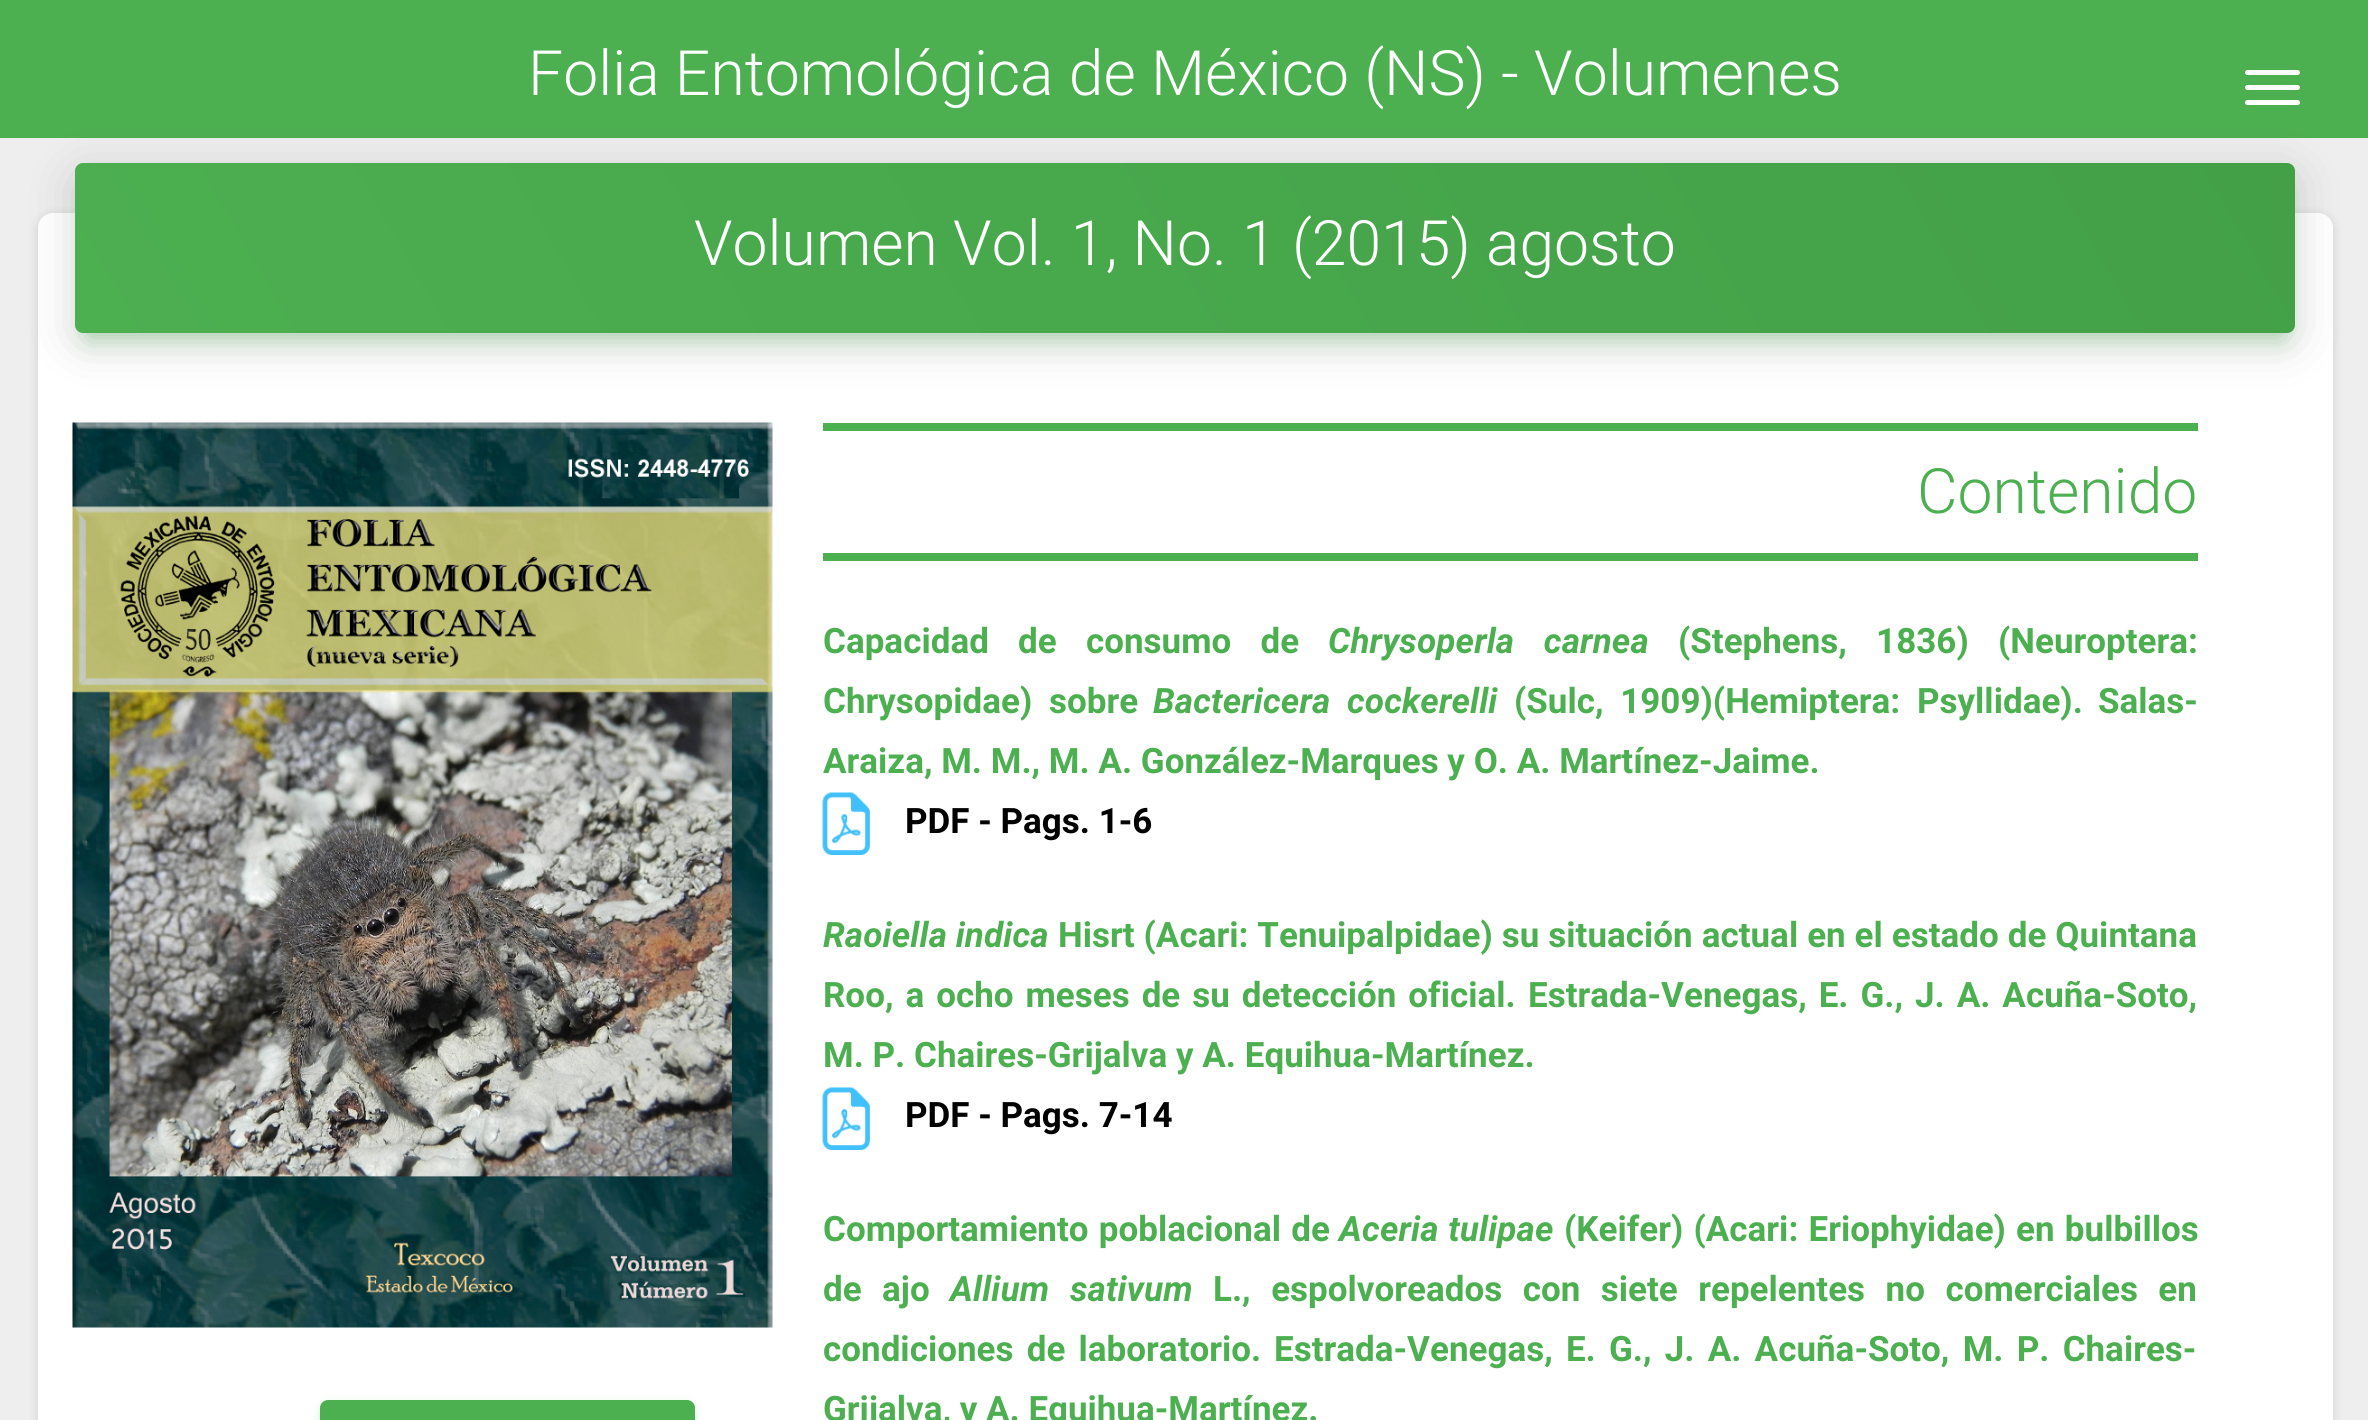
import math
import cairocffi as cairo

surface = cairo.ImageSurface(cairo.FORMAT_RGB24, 2368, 1420)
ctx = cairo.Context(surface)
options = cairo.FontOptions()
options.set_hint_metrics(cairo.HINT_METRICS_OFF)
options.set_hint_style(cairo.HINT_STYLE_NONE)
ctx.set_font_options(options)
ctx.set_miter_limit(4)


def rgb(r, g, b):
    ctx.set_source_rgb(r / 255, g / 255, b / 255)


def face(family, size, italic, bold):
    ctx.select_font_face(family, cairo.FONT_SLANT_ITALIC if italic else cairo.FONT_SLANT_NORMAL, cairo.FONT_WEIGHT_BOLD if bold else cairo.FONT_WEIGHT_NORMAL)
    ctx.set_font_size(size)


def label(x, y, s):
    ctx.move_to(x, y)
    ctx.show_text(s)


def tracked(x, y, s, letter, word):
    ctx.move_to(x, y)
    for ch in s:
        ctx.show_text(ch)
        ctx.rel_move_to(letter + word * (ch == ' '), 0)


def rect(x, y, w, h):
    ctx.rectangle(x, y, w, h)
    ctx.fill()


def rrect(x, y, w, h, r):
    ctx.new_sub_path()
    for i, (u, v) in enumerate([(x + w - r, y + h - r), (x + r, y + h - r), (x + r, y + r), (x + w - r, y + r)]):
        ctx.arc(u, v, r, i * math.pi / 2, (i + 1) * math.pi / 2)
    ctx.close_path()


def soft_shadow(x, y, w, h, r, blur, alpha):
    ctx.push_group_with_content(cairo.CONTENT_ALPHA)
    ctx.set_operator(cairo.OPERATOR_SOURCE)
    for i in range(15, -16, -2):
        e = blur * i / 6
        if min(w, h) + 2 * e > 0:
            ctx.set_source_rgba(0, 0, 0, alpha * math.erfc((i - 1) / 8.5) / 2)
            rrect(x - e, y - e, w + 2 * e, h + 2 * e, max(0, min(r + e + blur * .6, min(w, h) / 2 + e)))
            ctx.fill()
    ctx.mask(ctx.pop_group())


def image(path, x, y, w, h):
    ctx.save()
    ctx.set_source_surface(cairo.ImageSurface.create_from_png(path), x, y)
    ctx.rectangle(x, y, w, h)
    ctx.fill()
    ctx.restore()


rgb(238, 238, 238)
ctx.paint()
rgb(76, 175, 80)
rect(0, 0, 2368, 138)
face('Roboto Light', 62.5, 0, 0)
rgb(255, 255, 255)
label(528, 95, 'Folia Entomológica de México (NS) - Volumenes')
rrect(2245, 70, 55, 5, 2.5)
ctx.fill()
rrect(2245, 85, 55, 5, 2.5)
ctx.fill()
rgb(0, 0, 0)
soft_shadow(38, 215, 2295, 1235, 15, 5, 0.14)
rgb(255, 255, 255)
rrect(38, 213, 2295, 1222, 15)
ctx.fill()
rgb(0, 0, 0)
soft_shadow(75, 173, 2220, 170, 8, 25, 0.14)
rgb(255, 255, 255)
rrect(2245, 100, 55, 5, 2.5)
ctx.fill()
rgb(76, 175, 80)
soft_shadow(88, 193, 2195, 145, 0, 12.5, 0.4)
gradient = cairo.LinearGradient(316, 749, 2054, -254)
gradient.add_color_stop_rgba(0, 0.298, 0.686, 0.314, 1)
gradient.add_color_stop_rgba(1, 0.263, 0.627, 0.278, 1)
ctx.set_source(gradient)
rrect(75, 163, 2220, 170, 8)
ctx.fill()
rgb(255, 255, 255)
label(694, 265, 'Volumen Vol. 1, No. 1 (2015) agosto')
image('image0.png', 72, 422, 701, 906)
rgb(76, 175, 80)
soft_shadow(320, 1403, 375, 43, 8, 6, 0.12)
soft_shadow(320, 1405, 375, 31, 8, 2.5, 0.14)
rgb(76, 175, 80)
rrect(320, 1400, 375, 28, 8)
ctx.fill()
rect(823, 423, 1375, 8)
rect(823, 553, 1375, 8)
label(1917, 513, 'Contenido')
face('Roboto', 35, 0, 1)
tracked(823, 653, 'Capacidad de consumo de', 0, 20.5)
face('Roboto', 35, 1, 1)
tracked(1328, 653, 'Chrysoperla carnea', 0, 21)
face('Roboto', 35, 0, 1)
tracked(1678, 653, '(Stephens, 1836) (Neuroptera:', 0, 20.5)
tracked(823, 713, 'Chrysopidae) sobre', 0, 8)
face('Roboto', 35, 1, 1)
tracked(1153, 713, 'Bactericera cockerelli', 0, 8)
face('Roboto', 35, 0, 1)
tracked(1514, 713, '(Sulc, 1909)(Hemiptera: Psyllidae).', 0, 8)
label(2098, 713, 'Salas-')
label(823, 773, 'Araiza, M. M., M. A. González-Marques y O. A. Martínez-Jaime.')
image('image1.png', 822, 792, 48, 63)
rgb(0, 0, 0)
label(905, 833, 'PDF - Pags. 1-6')
face('Roboto', 35, 1, 1)
rgb(76, 175, 80)
label(823, 947, 'Raoiella indica')
face('Roboto', 35, 0, 1)
tracked(1058, 947, 'Hisrt (Acari: Tenuipalpidae) su situación actual en el estado de Quintana', 0, 0.25)
tracked(823, 1007, 'Roo, a ocho meses de su detección oficial.', 0, 3.25)
tracked(1528, 1007, 'Estrada-Venegas, E. G., J. A. Acuña-Soto,', 0, 3.25)
label(823, 1067, 'M. P. Chaires-Grijalva y A. Equihua-Martínez.')
image('image1.png', 822, 1087, 48, 63)
rgb(0, 0, 0)
label(905, 1127, 'PDF - Pags. 7-14')
rgb(76, 175, 80)
tracked(823, 1241, 'Comportamiento poblacional de', 0, 1.5)
face('Roboto', 35, 1, 1)
tracked(1339, 1241, 'Aceria tulipae', 0, 1)
face('Roboto', 35, 0, 1)
tracked(1564, 1241, '(Keifer) (Acari: Eriophyidae) en bulbillos', 0, 1.5)
tracked(823, 1301, 'de ajo', 0, 11.75)
face('Roboto', 35, 1, 1)
tracked(950, 1301, 'Allium sativum', 0, 12)
face('Roboto', 35, 0, 1)
tracked(1213, 1301, 'L., espolvoreados con siete repelentes no comerciales en', 0, 11.75)
tracked(823, 1361, 'condiciones de laboratorio.', 0, 4.5)
tracked(1274, 1361, 'Estrada-Venegas, E. G., J. A. Acuña-Soto, M. P. Chaires-', 0, 4.5)
label(823, 1421, 'Grijalva, y A. Equihua-Martínez.')
surface.write_to_png('render.png')
